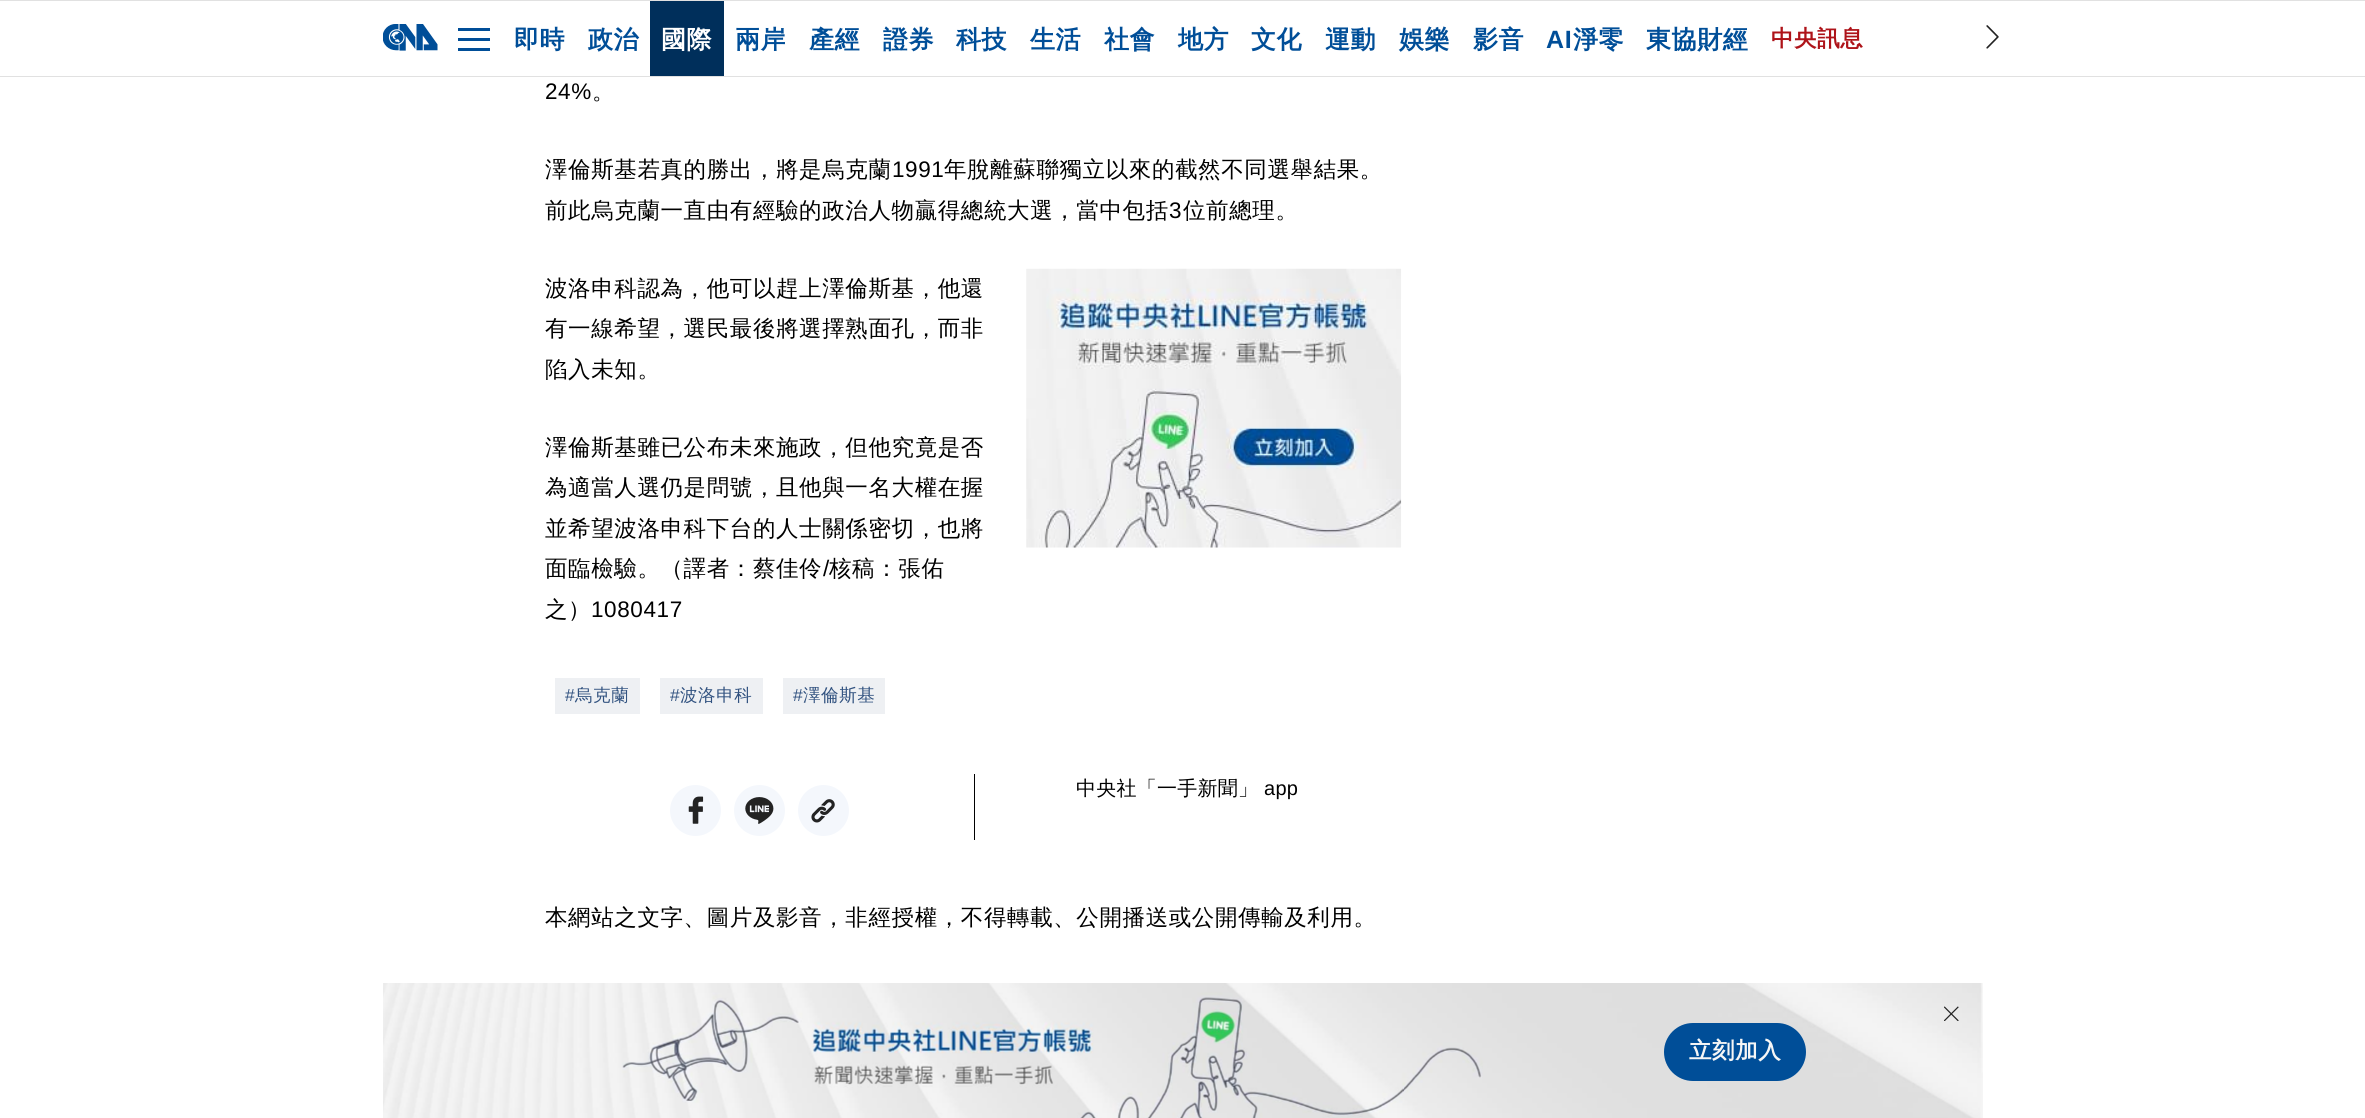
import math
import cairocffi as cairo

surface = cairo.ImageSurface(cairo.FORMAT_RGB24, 2365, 1118)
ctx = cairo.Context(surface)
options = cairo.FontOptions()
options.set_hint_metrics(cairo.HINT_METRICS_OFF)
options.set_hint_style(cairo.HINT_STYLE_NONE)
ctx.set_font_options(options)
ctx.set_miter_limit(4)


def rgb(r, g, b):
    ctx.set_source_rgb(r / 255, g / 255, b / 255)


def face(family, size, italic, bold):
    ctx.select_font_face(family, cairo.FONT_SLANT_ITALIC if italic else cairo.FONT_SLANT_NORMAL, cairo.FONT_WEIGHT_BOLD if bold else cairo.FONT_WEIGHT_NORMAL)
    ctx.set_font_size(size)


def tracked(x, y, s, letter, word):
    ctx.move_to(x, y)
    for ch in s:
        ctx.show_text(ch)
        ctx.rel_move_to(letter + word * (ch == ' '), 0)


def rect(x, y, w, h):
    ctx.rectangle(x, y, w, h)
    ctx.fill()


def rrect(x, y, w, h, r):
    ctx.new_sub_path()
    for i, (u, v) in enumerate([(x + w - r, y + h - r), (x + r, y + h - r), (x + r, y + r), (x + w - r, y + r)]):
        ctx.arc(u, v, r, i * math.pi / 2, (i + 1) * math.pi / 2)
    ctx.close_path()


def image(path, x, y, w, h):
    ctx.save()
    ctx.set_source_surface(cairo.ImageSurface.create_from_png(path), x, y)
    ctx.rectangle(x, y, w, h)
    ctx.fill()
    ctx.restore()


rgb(255, 255, 255)
ctx.paint()
rgb(225, 225, 225)
rect(0, 0, 2365, 1)
rect(0, 76, 2365, 1)
image('image0.png', 383, 24, 55, 27)
rgb(0, 78, 152)
rect(458, 28, 32, 3)
rect(458, 38, 32, 3)
rect(458, 48, 32, 3)
face('WenQuanYi Zen Hei', 25, 0, 1)
tracked(514, 48, '即時', 0.6, 0)
tracked(588, 48, '政治', 0.6, 0)
rgb(0, 47, 91)
rect(650, 1, 74, 75)
rgb(255, 255, 255)
tracked(661, 48, '國際', 0.6, 0)
rgb(0, 78, 152)
tracked(735, 48, '兩岸', 0.6, 0)
tracked(809, 48, '產經', 0.6, 0)
tracked(883, 48, '證券', 0.6, 0)
tracked(956, 48, '科技', 0.6, 0)
tracked(1030, 48, '生活', 0.6, 0)
tracked(1104, 48, '社會', 0.6, 0)
tracked(1178, 48, '地方', 0.6, 0)
tracked(1251, 48, '文化', 0.6, 0)
tracked(1325, 48, '運動', 0.6, 0)
tracked(1399, 48, '娛樂', 0.6, 0)
tracked(1473, 48, '影音', 0.6, 0)
face('Liberation Sans', 25, 0, 1)
tracked(1546, 48, 'AI', 0.6, 0)
face('WenQuanYi Zen Hei', 25, 0, 1)
tracked(1573, 48, '淨零', 0.6, 0)
tracked(1646, 48, '東協財經', 0.6, 0)
face('WenQuanYi Zen Hei', 22.5, 0, 1)
rgb(174, 19, 25)
tracked(1771, 46, '中央訊息', 0.6, 0)
image('image1.png', 1986, 25, 13, 24)
face('Liberation Sans', 22.5, 0, 0)
rgb(0, 0, 0)
tracked(545, 99, '24%', 0.6, 0)
face('WenQuanYi Zen Hei Medium', 22.5, 0, 0)
tracked(592, 99, '。', 0.6, 0)
tracked(545, 177, '澤倫斯基若真的勝出，將是烏克蘭', 0.6, 0)
face('Liberation Sans', 22.5, 0, 0)
tracked(892, 177, '1991', 0.6, 0)
face('WenQuanYi Zen Hei Medium', 22.5, 0, 0)
tracked(944, 177, '年脫離蘇聯獨立以來的截然不同選舉結果。', 0.6, 0)
tracked(545, 218, '前此烏克蘭一直由有經驗的政治人物贏得總統大選，當中包括', 0.6, 0)
face('Liberation Sans', 22.5, 0, 0)
tracked(1169, 218, '3', 0.6, 0)
face('WenQuanYi Zen Hei Medium', 22.5, 0, 0)
tracked(1183, 218, '位前總理。', 0.6, 0)
tracked(545, 296, '波洛申科認為，他可以趕上澤倫斯基，他還', 0.6, 0)
tracked(545, 336, '有一線希望，選民最後將選擇熟面孔，而非', 0.6, 0)
tracked(545, 377, '陷入未知。', 0.6, 0)
image('image2.png', 1026, 268, 376, 280)
tracked(545, 455, '澤倫斯基雖已公布未來施政，但他究竟是否', 0.6, 0)
tracked(545, 495, '為適當人選仍是問號，且他與一名大權在握', 0.6, 0)
tracked(545, 536, '並希望波洛申科下台的人士關係密切，也將', 0.6, 0)
tracked(545, 576, '面臨檢驗。（譯者：蔡佳伶', 0.6, 0)
face('Liberation Sans', 22.5, 0, 0)
tracked(823, 576, '/', 0.6, 0)
face('WenQuanYi Zen Hei Medium', 22.5, 0, 0)
tracked(829, 576, '核稿：張佑', 0.6, 0)
tracked(545, 617, '之）', 0.6, 0)
face('Liberation Sans', 22.5, 0, 0)
tracked(591, 617, '1080417', 0.6, 0)
rgb(238, 240, 243)
rect(555, 678, 85, 36)
face('Liberation Sans', 17.5, 0, 0)
rgb(49, 82, 128)
tracked(565, 701, '#', 0.6, 0)
face('WenQuanYi Zen Hei Medium', 17.5, 0, 0)
tracked(575, 701, '烏克蘭', 0.6, 0)
rgb(238, 240, 243)
rect(660, 678, 103, 36)
face('Liberation Sans', 17.5, 0, 0)
rgb(49, 82, 128)
tracked(670, 701, '#', 0.6, 0)
face('WenQuanYi Zen Hei Medium', 17.5, 0, 0)
tracked(680, 701, '波洛申科', 0.6, 0)
rgb(238, 240, 243)
rect(783, 678, 102, 36)
face('Liberation Sans', 17.5, 0, 0)
rgb(49, 82, 128)
tracked(793, 701, '#', 0.6, 0)
face('WenQuanYi Zen Hei Medium', 17.5, 0, 0)
tracked(803, 701, '澤倫斯基', 0.6, 0)
rgb(244, 247, 252)
ctx.new_path()
ctx.arc(695.5, 810.5, 25.5, 0, 2 * math.pi)
ctx.fill()
image('image3.png', 688, 796, 16, 28)
ctx.arc(759.5, 810.5, 25.5, 0, 2 * math.pi)
ctx.fill()
image('image4.png', 745, 797, 29, 27)
ctx.arc(823.5, 810.5, 25.5, 0, 2 * math.pi)
ctx.fill()
image('image5.png', 811, 799, 24, 24)
rgb(0, 0, 0)
rect(974, 774, 1, 66)
face('WenQuanYi Zen Hei Medium', 20, 0, 0)
tracked(1076, 795, '中央社「一手新聞」', 0.25, 0)
face('Liberation Sans', 20, 0, 0)
tracked(1264, 795, 'app', 0.25, 0)
face('WenQuanYi Zen Hei Medium', 22.5, 0, 0)
tracked(545, 925, '本網站之文字、圖片及影音，非經授權，不得轉載、公開播送或公開傳輸及利用。', 0.6, 0)
image('image6.png', 383, 983, 1600, 135)
image('image7.png', 1944, 1006, 15, 15)
rgb(0, 78, 152)
rrect(1664, 1023, 142, 58, 29)
ctx.fill()
face('WenQuanYi Zen Hei', 22.5, 0, 1)
rgb(246, 246, 246)
tracked(1689, 1058, '立刻加入', 0.6, 0)
surface.write_to_png('render.png')
